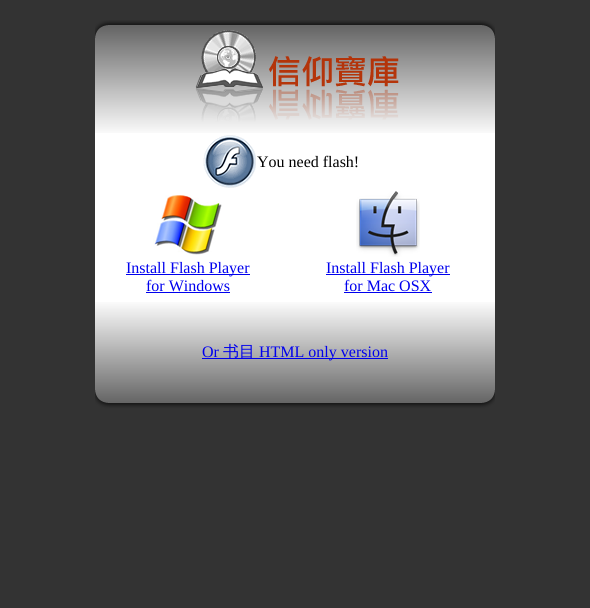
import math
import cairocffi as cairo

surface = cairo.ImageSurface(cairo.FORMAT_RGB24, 590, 608)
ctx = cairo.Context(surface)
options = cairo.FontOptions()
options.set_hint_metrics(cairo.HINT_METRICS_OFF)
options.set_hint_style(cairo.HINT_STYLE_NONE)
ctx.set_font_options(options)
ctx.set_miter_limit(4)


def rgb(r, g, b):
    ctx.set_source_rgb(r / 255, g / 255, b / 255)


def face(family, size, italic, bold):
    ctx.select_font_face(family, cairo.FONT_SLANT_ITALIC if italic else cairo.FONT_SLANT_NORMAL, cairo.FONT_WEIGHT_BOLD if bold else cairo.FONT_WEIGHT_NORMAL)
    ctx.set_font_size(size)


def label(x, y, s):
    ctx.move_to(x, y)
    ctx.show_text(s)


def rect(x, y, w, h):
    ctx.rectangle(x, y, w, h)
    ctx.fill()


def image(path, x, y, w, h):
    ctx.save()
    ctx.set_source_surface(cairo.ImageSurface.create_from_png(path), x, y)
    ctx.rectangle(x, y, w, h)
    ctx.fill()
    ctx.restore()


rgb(51, 51, 51)
ctx.paint()
rgb(255, 255, 255)
rect(95, 133, 400, 169)
image('image0.png', 95, 20, 400, 113)
image('image1.png', 203, 135, 53, 53)
face('Liberation Serif', 16, 0, 0)
rgb(0, 0, 0)
label(257, 167, 'You need flash!')
image('image2.png', 153, 195, 69, 60)
image('image3.png', 356, 191, 64, 66)
rgb(0, 0, 238)
rect(126, 274, 124, 1)
label(126, 273, 'Install Flash Player')
label(146, 291, 'for Windows')
rect(146, 292, 84, 1)
rect(326, 274, 124, 1)
label(326, 273, 'Install Flash Player')
label(344, 291, 'for Mac OSX')
rect(344, 292, 88, 1)
image('image4.png', 95, 302, 400, 107)
label(202, 357, 'Or')
rect(202, 358, 186, 1)
face('WenQuanYi Zen Hei Medium', 16, 0, 0)
label(223, 357, '书目')
face('Liberation Serif', 16, 0, 0)
label(259, 357, 'HTML only version')
surface.write_to_png('render.png')
